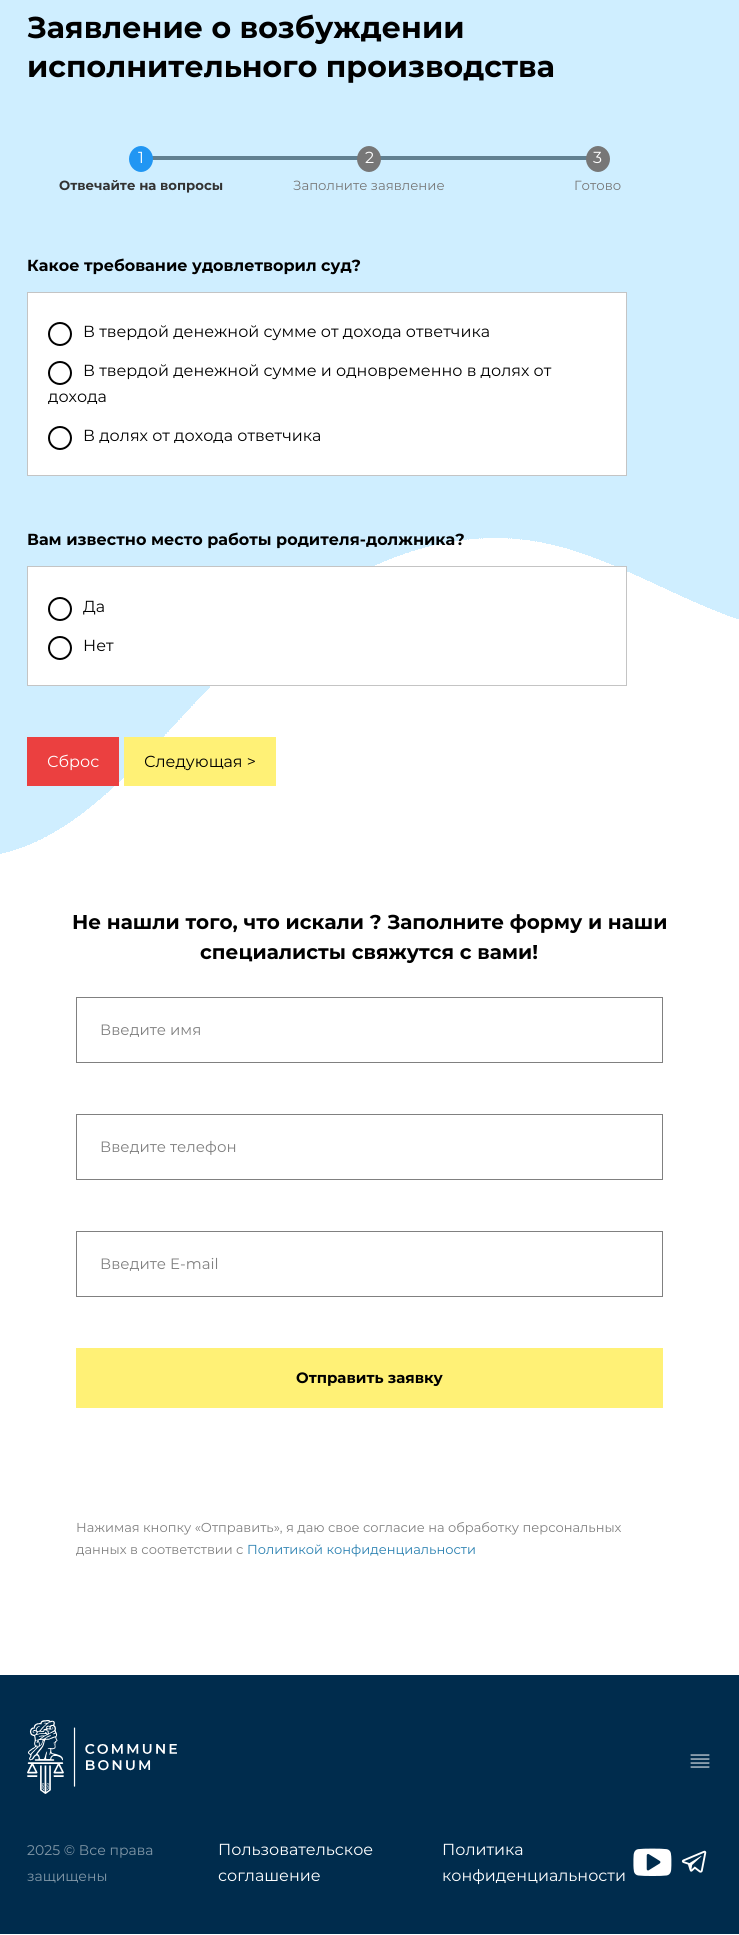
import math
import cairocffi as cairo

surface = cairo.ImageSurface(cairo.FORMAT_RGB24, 739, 1935)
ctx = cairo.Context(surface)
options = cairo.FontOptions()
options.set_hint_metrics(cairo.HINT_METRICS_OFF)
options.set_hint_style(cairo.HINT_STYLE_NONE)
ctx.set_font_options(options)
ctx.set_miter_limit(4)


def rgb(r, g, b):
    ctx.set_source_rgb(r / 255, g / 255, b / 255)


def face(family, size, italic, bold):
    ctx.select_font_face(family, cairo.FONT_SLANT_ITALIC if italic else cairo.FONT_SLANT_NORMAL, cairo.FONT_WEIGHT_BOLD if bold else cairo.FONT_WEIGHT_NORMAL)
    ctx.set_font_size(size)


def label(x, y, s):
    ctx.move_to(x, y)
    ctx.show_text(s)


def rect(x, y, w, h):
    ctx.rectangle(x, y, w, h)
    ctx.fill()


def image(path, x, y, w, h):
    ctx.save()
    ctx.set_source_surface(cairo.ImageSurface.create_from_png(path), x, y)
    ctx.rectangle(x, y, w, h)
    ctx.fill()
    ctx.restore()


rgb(255, 255, 255)
ctx.paint()
rgb(119, 119, 119)
rect(152, 156, 206, 4)
rect(380, 156, 207, 4)
image('image0.png', 0, 0, 739, 854)
face('Montserrat', 30, 0, 1)
rgb(0, 0, 0)
label(27, 38, 'Заявление о возбуждении')
label(27, 77, 'исполнительного производства')
rgb(33, 150, 243)
ctx.new_path()
ctx.move_to(141, 146)
ctx.curve_to(147.5, 146, 153, 152, 153, 159)
ctx.curve_to(153, 166, 147.5, 172, 141, 172)
ctx.curve_to(134.5, 172, 129, 166, 129, 159)
ctx.curve_to(129, 152, 134.5, 146, 141, 146)
ctx.close_path()
ctx.fill()
face('Montserrat', 16, 0, 0)
rgb(255, 255, 255)
label(138, 163, '1')
face('Montserrat', 13.25, 0, 1)
rgb(51, 51, 51)
label(59, 190, 'Отвечайте на вопросы')
rgb(119, 119, 119)
ctx.new_path()
ctx.move_to(369, 146)
ctx.curve_to(375.5, 146, 381, 152, 381, 159)
ctx.curve_to(381, 166, 375.5, 172, 369, 172)
ctx.curve_to(362.5, 172, 357, 166, 357, 159)
ctx.curve_to(357, 152, 362.5, 146, 369, 146)
ctx.close_path()
ctx.fill()
face('Montserrat', 16, 0, 0)
rgb(255, 255, 255)
label(365, 163, '2')
face('Montserrat', 13.25, 0, 0)
rgb(119, 119, 119)
label(293, 190, 'Заполните заявление')
ctx.new_path()
ctx.move_to(598, 146)
ctx.curve_to(604.5, 146, 610, 152, 610, 159)
ctx.curve_to(610, 166, 604.5, 172, 598, 172)
ctx.curve_to(591.5, 172, 586, 166, 586, 159)
ctx.curve_to(586, 152, 591.5, 146, 598, 146)
ctx.close_path()
ctx.fill()
face('Montserrat', 16, 0, 0)
rgb(255, 255, 255)
label(593, 163, '3')
face('Montserrat', 13.25, 0, 0)
rgb(119, 119, 119)
label(574, 190, 'Готово')
face('Montserrat', 16, 0, 1)
rgb(0, 0, 0)
label(27, 271, 'Какое требование удовлетворил суд?')
rgb(255, 255, 255)
ctx.rectangle(27.5, 292.5, 599, 183)
ctx.fill_preserve()
rgb(196, 196, 196)
ctx.set_line_width(1)
ctx.stroke()
ctx.arc(60, 334, 11, 0, 2 * math.pi)
rgb(0, 0, 0)
ctx.set_line_width(2)
ctx.stroke()
face('Montserrat', 16, 0, 0)
label(83, 337, 'В твердой денежной сумме от дохода ответчика')
ctx.new_path()
ctx.arc(60, 373, 11, 0, 2 * math.pi)
ctx.stroke()
label(83, 376, 'В твердой денежной сумме и одновременно в долях от')
label(48, 402, 'дохода')
ctx.new_path()
ctx.arc(60, 438, 11, 0, 2 * math.pi)
ctx.stroke()
label(83, 441, 'В долях от дохода ответчика')
face('Montserrat', 16, 0, 1)
label(27, 545, 'Вам известно место работы родителя-должника?')
rgb(255, 255, 255)
ctx.rectangle(27.5, 566.5, 599, 119)
ctx.fill_preserve()
rgb(196, 196, 196)
ctx.set_line_width(1)
ctx.stroke()
ctx.arc(60, 609, 11, 0, 2 * math.pi)
rgb(0, 0, 0)
ctx.set_line_width(2)
ctx.stroke()
face('Montserrat', 16, 0, 0)
label(83, 612, 'Да')
ctx.new_path()
ctx.arc(60, 648, 11, 0, 2 * math.pi)
ctx.stroke()
label(83, 651, 'Нет')
rgb(235, 64, 64)
rect(27, 737, 92, 49)
rgb(255, 255, 255)
label(47, 767, 'Сброс')
rgb(255, 241, 118)
rect(124, 737, 152, 49)
rgb(0, 0, 0)
label(144, 767, 'Следующая >')
face('Montserrat', 20, 0, 1)
label(72, 929, 'Не нашли того, что искали ? Заполните форму и наши')
label(200, 959, 'специалисты свяжутся с вами!')
ctx.rectangle(76.5, 997.5, 586, 65)
rgb(128, 128, 128)
ctx.set_line_width(1)
ctx.stroke()
face('Montserrat', 15, 0, 0)
label(100, 1035, 'Введите имя')
ctx.rectangle(76.5, 1114.5, 586, 65)
ctx.stroke()
label(100, 1152, 'Введите телефон')
ctx.rectangle(76.5, 1231.5, 586, 65)
ctx.stroke()
label(100, 1269, 'Введите E-mail')
rgb(255, 241, 118)
rect(76, 1348, 587, 60)
face('Montserrat', 15, 0, 1)
rgb(0, 0, 0)
label(296, 1383, 'Отправить заявку')
face('Montserrat', 13, 0, 0)
rgb(128, 128, 128)
label(76, 1532, 'Нажимая кнопку «Отправить», я даю свое согласие на обработку персональных')
label(76, 1554, 'данных в соответствии с')
rgb(40, 127, 176)
label(247, 1554, 'Политикой конфиденциальности')
rgb(0, 44, 77)
rect(0, 1675, 739, 259)
image('image1.png', 27, 1720, 150, 74)
image('image2.png', 690, 1754, 20, 14)
face('Montserrat', 14, 0, 0)
rgb(130, 152, 168)
label(27, 1855, '2025 © Все права')
label(27, 1881, 'защищены')
face('Montserrat', 16, 0, 0)
rgb(255, 255, 255)
label(218, 1855, 'Пользовательское')
label(218, 1881, 'соглашение')
label(442, 1855, 'Политика')
label(442, 1881, 'конфиденциальности')
image('image3.png', 633, 1848, 39, 28)
image('image4.png', 681, 1850, 26, 23)
surface.write_to_png('render.png')
